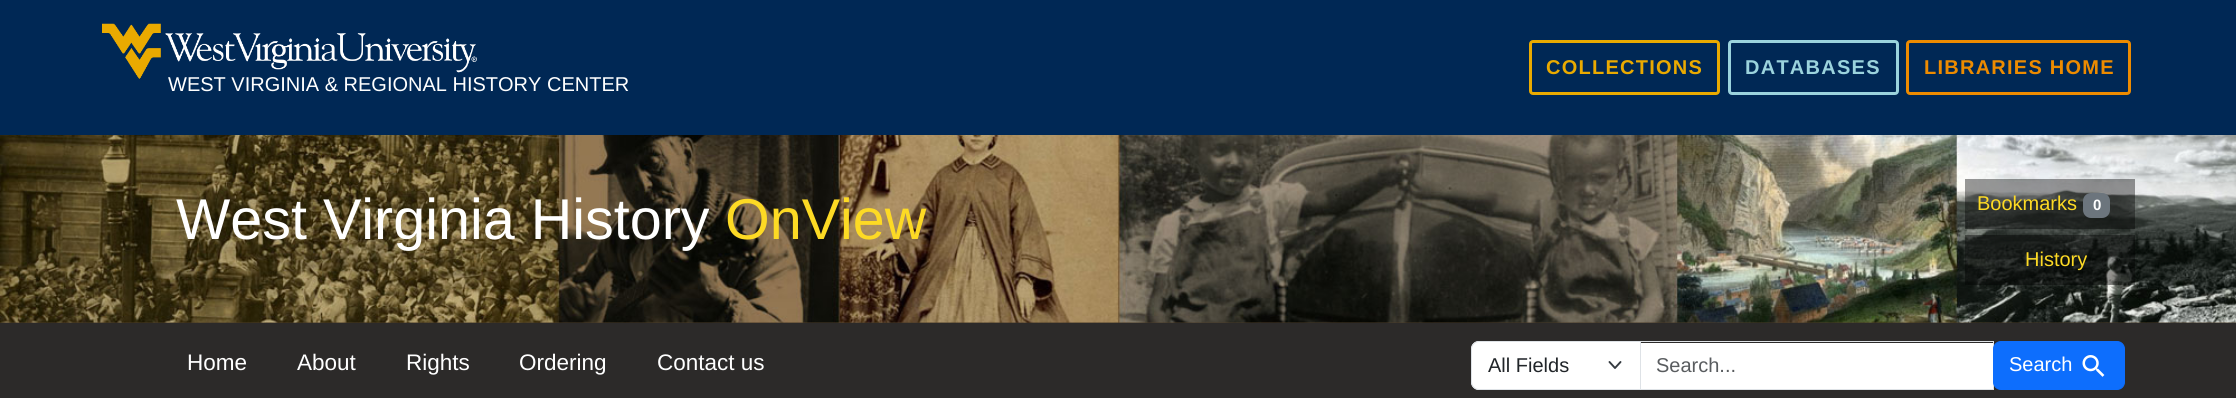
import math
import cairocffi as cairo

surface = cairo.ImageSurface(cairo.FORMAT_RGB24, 2236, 398)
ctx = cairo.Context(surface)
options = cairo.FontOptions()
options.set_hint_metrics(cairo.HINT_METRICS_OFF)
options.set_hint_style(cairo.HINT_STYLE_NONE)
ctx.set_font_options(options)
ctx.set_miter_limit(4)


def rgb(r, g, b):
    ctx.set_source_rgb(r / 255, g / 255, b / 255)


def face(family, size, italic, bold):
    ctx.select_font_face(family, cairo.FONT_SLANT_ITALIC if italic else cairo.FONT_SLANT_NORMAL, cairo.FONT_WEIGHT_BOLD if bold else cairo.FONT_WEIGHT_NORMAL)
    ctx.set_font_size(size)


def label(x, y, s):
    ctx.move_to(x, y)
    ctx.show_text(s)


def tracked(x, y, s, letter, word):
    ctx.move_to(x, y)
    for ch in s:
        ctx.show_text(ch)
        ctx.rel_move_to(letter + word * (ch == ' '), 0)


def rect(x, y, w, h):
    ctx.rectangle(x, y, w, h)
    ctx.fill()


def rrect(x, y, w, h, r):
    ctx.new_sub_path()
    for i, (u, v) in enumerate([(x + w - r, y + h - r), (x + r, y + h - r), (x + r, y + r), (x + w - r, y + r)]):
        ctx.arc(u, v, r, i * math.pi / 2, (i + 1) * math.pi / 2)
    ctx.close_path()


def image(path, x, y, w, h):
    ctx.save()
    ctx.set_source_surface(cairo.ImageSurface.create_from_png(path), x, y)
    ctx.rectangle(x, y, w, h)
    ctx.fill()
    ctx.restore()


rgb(75, 61, 42)
ctx.paint()
rgb(0, 40, 85)
rect(0, 0, 2236, 135)
rrect(1530.5, 41.5, 188, 52, 2.5)
rgb(234, 170, 0)
ctx.set_line_width(3)
ctx.stroke()
face('Liberation Sans', 20, 0, 1)
tracked(1546, 74, 'COLLECTIONS', 1.25, 0)
rrect(1729.5, 41.5, 168, 52, 2.5)
rgb(155, 211, 221)
ctx.stroke()
tracked(1745, 74, 'DATABASES', 1.25, 0)
rrect(1907.5, 41.5, 222, 52, 2.5)
rgb(237, 139, 0)
ctx.stroke()
tracked(1924, 74, 'LIBRARIES HOME', 1.25, 0)
image('image0.png', 102, 23, 375, 56)
face('Liberation Sans', 20, 0, 0)
rgb(255, 255, 255)
label(168, 91, 'WEST VIRGINIA & REGIONAL HISTORY CENTER')
image('image1.png', 0, 135, 2236, 188)
face('Liberation Sans', 57.5, 0, 0)
label(176, 239, 'West Virginia History')
rgb(253, 218, 36)
label(725, 239, 'OnView')
ctx.set_source_rgba(0, 0, 0, 0.4)
rect(1965, 179, 170, 50)
face('Liberation Sans', 20, 0, 0)
rgb(253, 218, 36)
label(1977, 210, 'Bookmarks')
rgb(108, 117, 125)
rrect(2083, 193, 27, 25, 8)
ctx.fill()
face('Liberation Sans', 15, 0, 1)
rgb(255, 255, 255)
label(2093, 210, '0')
ctx.set_source_rgba(0, 0, 0, 0.4)
rect(1965, 235, 170, 50)
face('Liberation Sans', 20, 0, 0)
rgb(253, 218, 36)
label(2025, 266, 'History')
rgb(44, 42, 41)
rect(0, 323, 2236, 75)
face('Liberation Sans', 22.5, 0, 0)
rgb(255, 255, 255)
label(187, 370, 'Home')
label(297, 370, 'About')
label(406, 370, 'Rights')
label(519, 370, 'Ordering')
label(657, 370, 'Contact us')
ctx.new_path()
ctx.move_to(1479, 341)
ctx.line_to(1641, 341)
ctx.line_to(1641, 390)
ctx.line_to(1479, 390)
ctx.curve_to(1474.5, 390, 1471, 386.5, 1471, 382)
ctx.line_to(1471, 349)
ctx.curve_to(1471, 344.5, 1474.5, 341, 1479, 341)
ctx.close_path()
ctx.fill()
ctx.new_path()
ctx.move_to(1609.5, 362)
ctx.line_to(1615, 368)
ctx.line_to(1620.5, 362)
rgb(52, 58, 64)
ctx.set_line_width(1.9)
ctx.set_line_cap(cairo.LINE_CAP_ROUND)
ctx.set_line_join(cairo.LINE_JOIN_ROUND)
ctx.stroke()
ctx.new_path()
ctx.move_to(1479, 341.5)
ctx.line_to(1640.5, 341.5)
ctx.line_to(1640.5, 389.5)
ctx.line_to(1479, 389.5)
ctx.curve_to(1475, 389.5, 1471.5, 386, 1471.5, 382)
ctx.line_to(1471.5, 349)
ctx.curve_to(1471.5, 345, 1475, 341.5, 1479, 341.5)
ctx.close_path()
rgb(222, 226, 230)
ctx.set_line_width(1)
ctx.set_line_cap(cairo.LINE_CAP_BUTT)
ctx.set_line_join(cairo.LINE_JOIN_MITER)
ctx.stroke()
face('Liberation Sans', 20, 0, 0)
rgb(33, 37, 41)
label(1488, 372, 'All Fields')
rgb(255, 255, 255)
rect(1641, 343, 352, 46)
ctx.rectangle(1640.5, 341.5, 353, 48)
rgb(222, 226, 230)
ctx.stroke()
rgb(89, 92, 95)
label(1656, 372, 'Search...')
rgb(13, 110, 253)
rrect(1993.5, 341.5, 131, 48, 7.5)
ctx.fill_preserve()
ctx.stroke()
rgb(255, 255, 255)
label(2009, 371, 'Search')
image('image2.png', 2082, 355, 23, 22)
surface.write_to_png('render.png')
